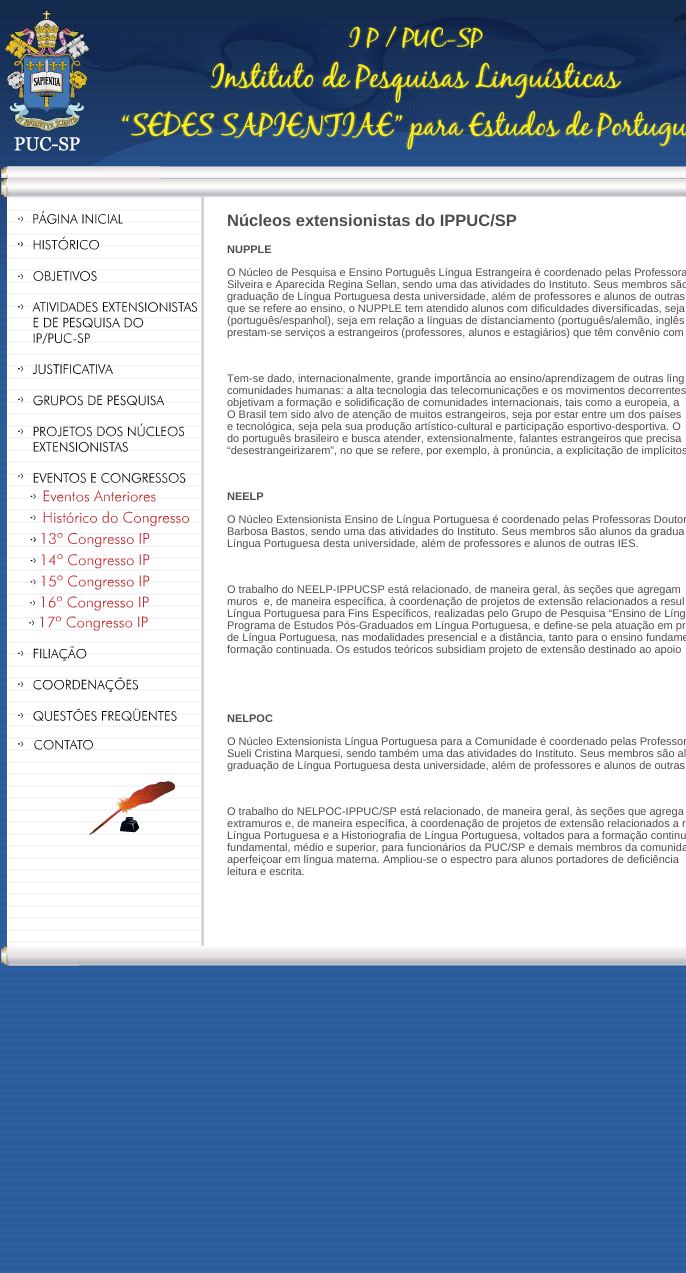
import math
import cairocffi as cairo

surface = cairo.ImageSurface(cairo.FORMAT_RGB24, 686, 1273)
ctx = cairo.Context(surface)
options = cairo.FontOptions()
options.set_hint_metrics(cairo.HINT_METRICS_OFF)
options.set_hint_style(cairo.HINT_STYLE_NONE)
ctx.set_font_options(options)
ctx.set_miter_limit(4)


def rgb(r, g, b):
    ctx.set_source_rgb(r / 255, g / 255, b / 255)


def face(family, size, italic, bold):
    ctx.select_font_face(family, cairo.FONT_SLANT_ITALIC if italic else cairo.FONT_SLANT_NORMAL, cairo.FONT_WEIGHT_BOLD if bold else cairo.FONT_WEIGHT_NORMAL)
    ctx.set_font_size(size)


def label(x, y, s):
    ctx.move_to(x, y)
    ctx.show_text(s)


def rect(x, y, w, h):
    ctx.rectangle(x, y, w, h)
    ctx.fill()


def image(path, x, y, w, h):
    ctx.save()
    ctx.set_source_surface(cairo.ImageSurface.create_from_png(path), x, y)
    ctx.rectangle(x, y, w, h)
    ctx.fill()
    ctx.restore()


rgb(255, 255, 255)
ctx.paint()
image('image0.png', 0, 527, 686, 746)
image('image1.png', 0, 0, 686, 527)
image('image2.png', 0, 8, 686, 170)
image('image3.png', 0, 178, 686, 19)
rgb(255, 255, 255)
rect(7, 197, 679, 749)
image('image4.png', 10, 197, 194, 749)
image('image5.png', 18, 211, 179, 625)
face('Liberation Sans', 16.5, 0, 1)
rgb(77, 77, 77)
label(227, 226, 'Núcleos extensionistas do IPPUC/SP')
face('Liberation Sans', 11, 0, 1)
label(227, 253, 'NUPPLE')
face('Liberation Sans', 11, 0, 0)
label(227, 276, 'O Núcleo de Pesquisa e Ensino Português Língua Estrangeira é coordenado pelas Professora')
label(227, 288, 'Silveira e Aparecida Regina Sellan, sendo uma das atividades do Instituto. Seus membros são')
label(227, 300, 'graduação de Língua Portuguesa desta universidade, além de professores e alunos de outras')
label(227, 312, 'que se refere ao ensino, o NUPPLE tem atendido alunos com dificuldades diversificadas, seja')
label(227, 324, '(português/espanhol), seja em relação a línguas de distanciamento (português/alemão, inglês')
label(227, 336, 'prestam-se serviços a estrangeiros (professores, alunos e estagiários) que têm convênio com')
label(227, 382, 'Tem-se dado, internacionalmente, grande importância ao ensino/aprendizagem de outras líng')
label(227, 394, 'comunidades humanas: a alta tecnologia das telecomunicações e os movimentos decorrentes')
label(227, 406, 'objetivam a formação e solidificação de comunidades internacionais, tais como a europeia, a')
label(227, 418, 'O Brasil tem sido alvo de atenção de muitos estrangeiros, seja por estar entre um dos países')
label(227, 430, 'e tecnológica, seja pela sua produção artístico-cultural e participação esportivo-desportiva. O')
label(227, 442, 'do português brasileiro e busca atender, extensionalmente, falantes estrangeiros que precisa')
label(227, 454, '“desestrangeirizarem”, no que se refere, por exemplo, à pronúncia, a explicitação de implícitos')
face('Liberation Sans', 11, 0, 1)
label(227, 500, 'NEELP')
face('Liberation Sans', 11, 0, 0)
label(227, 523, 'O Núcleo Extensionista Ensino de Língua Portuguesa é coordenado pelas Professoras Doutor')
label(227, 535, 'Barbosa Bastos, sendo uma das atividades do Instituto. Seus membros são alunos da gradua')
label(227, 547, 'Língua Portuguesa desta universidade, além de professores e alunos de outras IES.')
label(227, 593, 'O trabalho do NEELP-IPPUCSP está relacionado, de maneira geral, às seções que agregam')
label(227, 605, 'muros  e, de maneira específica, à coordenação de projetos de extensão relacionados a resul')
label(227, 617, 'Língua Portuguesa para Fins Específicos, realizadas pelo Grupo de Pesquisa “Ensino de Líng')
label(227, 629, 'Programa de Estudos Pós-Graduados em Língua Portuguesa, e define-se pela atuação em pr')
label(227, 641, 'de Língua Portuguesa, nas modalidades presencial e a distância, tanto para o ensino fundame')
label(227, 653, 'formação continuada. Os estudos teóricos subsidiam projeto de extensão destinado ao apoio')
face('Liberation Sans', 11, 0, 1)
label(227, 722, 'NELPOC')
face('Liberation Sans', 11, 0, 0)
label(227, 745, 'O Núcleo Extensionista Língua Portuguesa para a Comunidade é coordenado pelas Professor')
label(227, 757, 'Sueli Cristina Marquesi, sendo também uma das atividades do Instituto. Seus membros são al')
label(227, 769, 'graduação de Língua Portuguesa desta universidade, além de professores e alunos de outras')
label(227, 815, 'O trabalho do NELPOC-IPPUC/SP está relacionado, de maneira geral, às seções que agrega')
label(227, 827, 'extramuros e, de maneira específica, à coordenação de projetos de extensão relacionados a r')
label(227, 839, 'Língua Portuguesa e a Historiografia de Língua Portuguesa, voltados para a formação continu')
label(227, 851, 'fundamental, médio e superior, para funcionários da PUC/SP e demais membros da comunida')
label(227, 863, 'aperfeiçoar em língua materna. Ampliou-se o espectro para alunos portadores de deficiência')
label(227, 875, 'leitura e escrita.')
image('image6.png', 0, 946, 686, 20)
surface.write_to_png('render.png')
